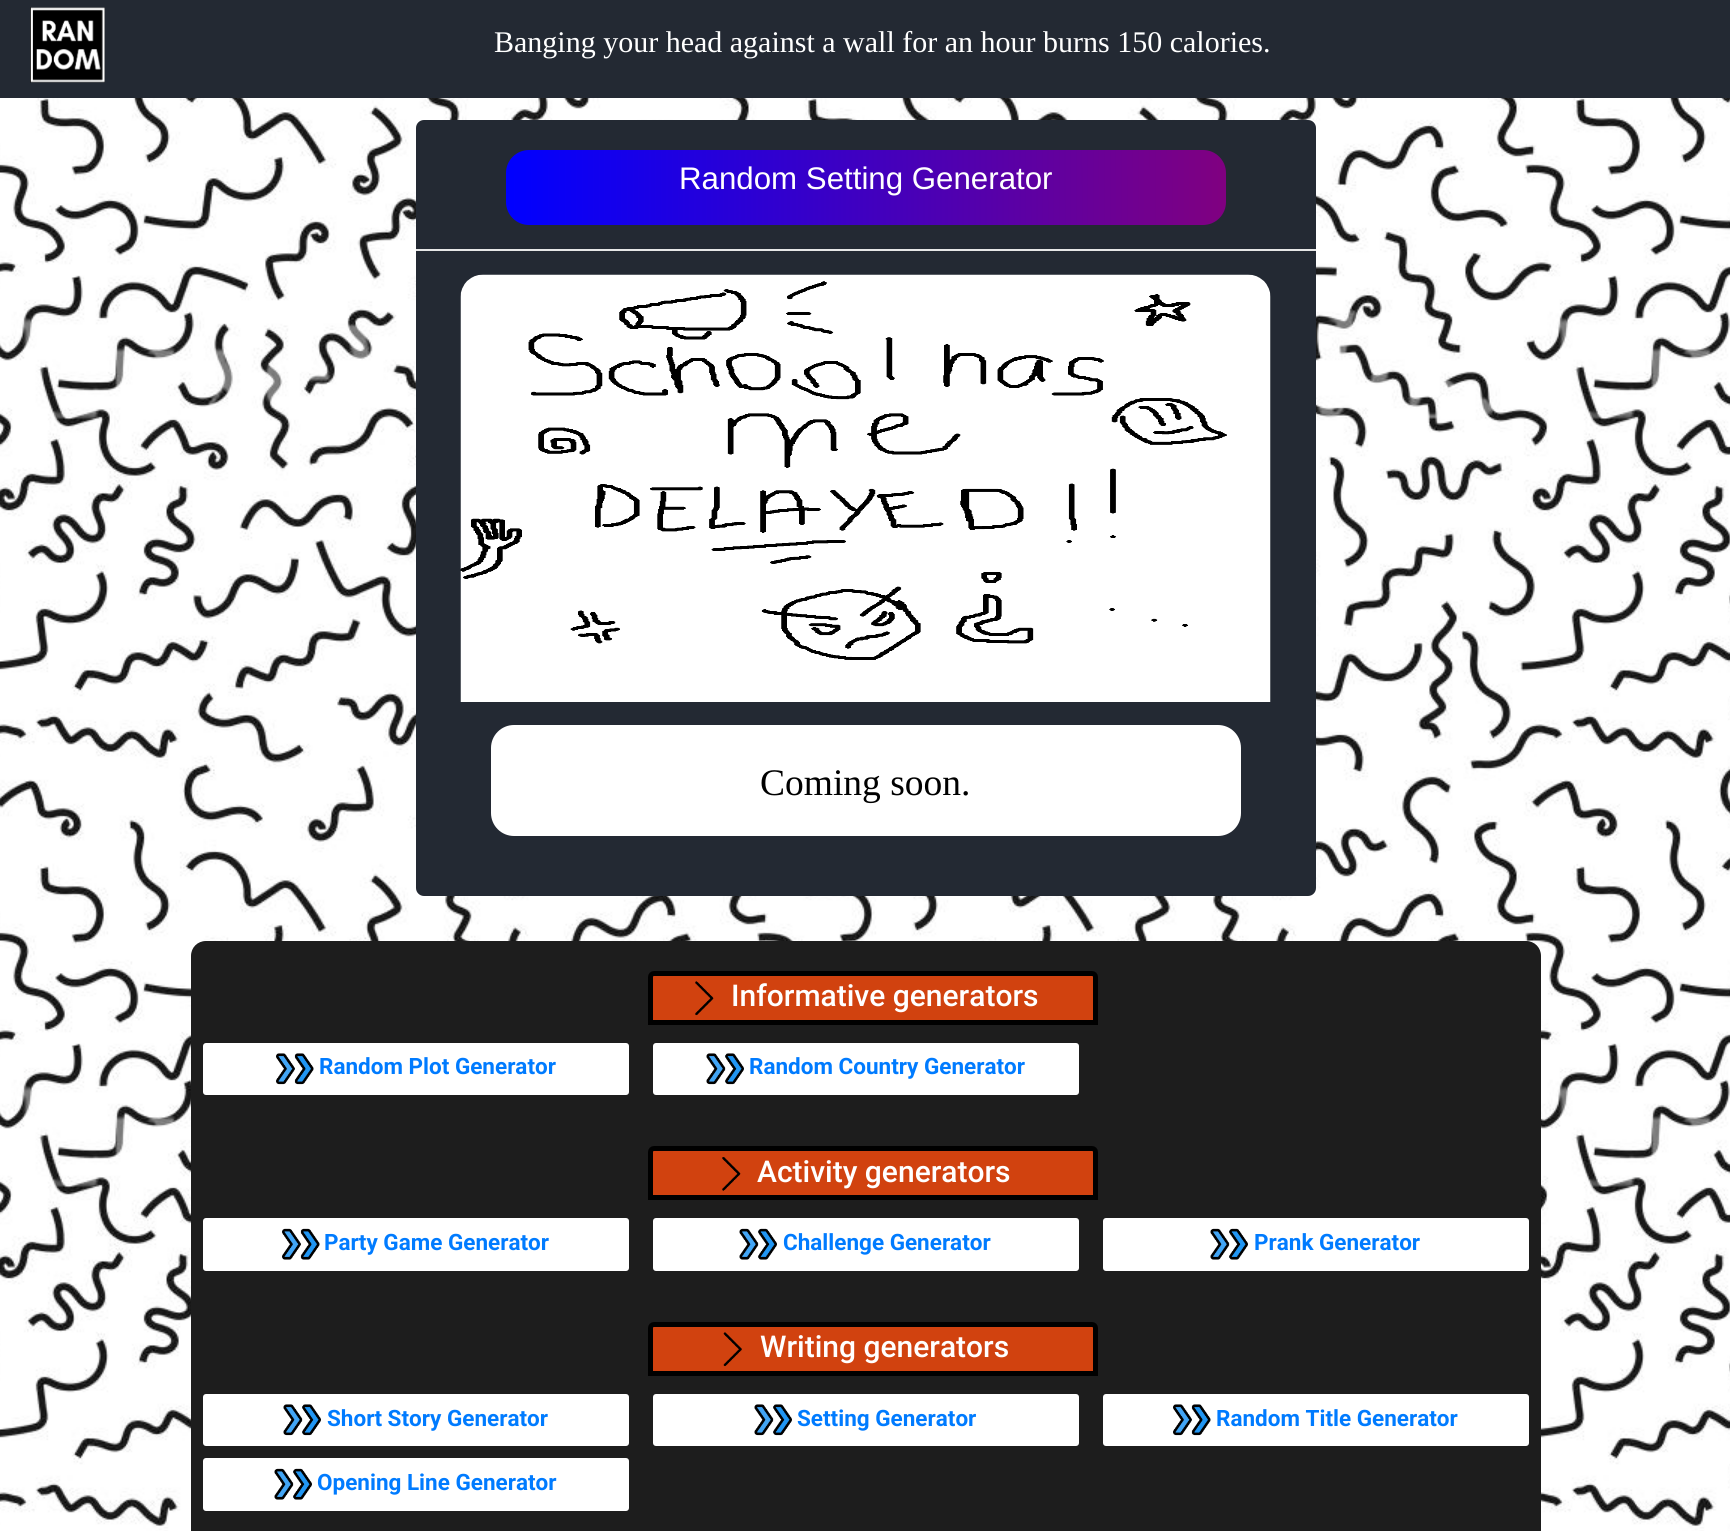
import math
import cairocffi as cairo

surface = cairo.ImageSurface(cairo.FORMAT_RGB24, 1730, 1531)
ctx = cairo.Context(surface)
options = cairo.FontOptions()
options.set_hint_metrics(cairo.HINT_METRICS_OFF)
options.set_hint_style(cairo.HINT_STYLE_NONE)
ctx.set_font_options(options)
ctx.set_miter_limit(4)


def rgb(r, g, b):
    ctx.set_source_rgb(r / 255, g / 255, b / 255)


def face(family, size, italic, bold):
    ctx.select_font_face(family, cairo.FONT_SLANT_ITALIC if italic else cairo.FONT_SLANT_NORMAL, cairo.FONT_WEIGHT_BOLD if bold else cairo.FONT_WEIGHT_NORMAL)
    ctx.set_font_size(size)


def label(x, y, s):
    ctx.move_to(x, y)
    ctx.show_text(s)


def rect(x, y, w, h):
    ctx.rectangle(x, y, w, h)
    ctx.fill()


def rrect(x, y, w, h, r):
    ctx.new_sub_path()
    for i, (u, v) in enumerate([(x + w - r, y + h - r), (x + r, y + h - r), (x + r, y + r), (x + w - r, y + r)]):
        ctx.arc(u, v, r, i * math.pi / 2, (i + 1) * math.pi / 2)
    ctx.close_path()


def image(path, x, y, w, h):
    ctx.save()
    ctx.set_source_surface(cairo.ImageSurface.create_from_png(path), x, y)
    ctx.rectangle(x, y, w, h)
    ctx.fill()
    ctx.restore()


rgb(255, 255, 255)
ctx.paint()
image('image0.png', 0, 98, 1730, 1433)
rgb(35, 41, 51)
rect(0, 0, 1730, 98)
image('image1.png', 30, 7, 75, 76)
face('Liberation Serif', 30, 0, 0)
rgb(255, 255, 255)
label(494, 52, 'Banging your head against a wall for an hour burns 150 calories.')
rgb(35, 41, 51)
rrect(416, 120, 900, 776, 8)
ctx.fill()
gradient = cairo.LinearGradient(506, 188, 1226, 187)
gradient.add_color_stop_rgba(0, 0, 0, 1, 1)
gradient.add_color_stop_rgba(1, 0.502, 0, 0.502, 1)
ctx.set_source(gradient)
rrect(506, 150, 720, 75, 23)
ctx.fill()
face('Liberation Sans', 31.25, 0, 0)
rgb(255, 255, 255)
label(679, 189, 'Random Setting Generator')
rgb(230, 230, 230)
rect(416, 249, 900, 2)
image('image2.png', 460, 274, 811, 428)
rgb(255, 255, 255)
rrect(491, 725, 750, 111, 23)
ctx.fill()
face('Liberation Serif', 37.5, 0, 0)
rgb(0, 0, 0)
label(760, 795, 'Coming soon.')
rgb(29, 29, 29)
ctx.new_path()
ctx.move_to(206, 941)
ctx.line_to(1526, 941)
ctx.curve_to(1534.5, 941, 1541, 947.5, 1541, 956)
ctx.line_to(1541, 1116)
ctx.line_to(191, 1116)
ctx.line_to(191, 956)
ctx.curve_to(191, 947.5, 197.5, 941, 206, 941)
ctx.close_path()
ctx.fill()
rgb(209, 66, 15)
ctx.new_path()
ctx.move_to(654, 973.5)
ctx.line_to(1092, 973.5)
ctx.curve_to(1094, 973.5, 1095.5, 975, 1095.5, 977)
ctx.line_to(1095.5, 1022.5)
ctx.line_to(650.5, 1022.5)
ctx.line_to(650.5, 977)
ctx.curve_to(650.5, 975, 652, 973.5, 654, 973.5)
ctx.close_path()
ctx.fill_preserve()
rgb(0, 0, 0)
ctx.set_line_width(5)
ctx.stroke()
image('image3.png', 695, 981, 19, 35)
face('Roboto Medium', 30, 0, 0)
rgb(255, 255, 255)
label(731, 1006, 'Informative generators')
rrect(203, 1043, 426, 52, 3)
ctx.fill()
image('image4.png', 276, 1053, 38, 32)
face('Roboto', 22.5, 0, 1)
rgb(0, 123, 255)
label(319, 1074, 'Random Plot Generator')
rgb(255, 255, 255)
rrect(653, 1043, 426, 52, 3)
ctx.fill()
image('image5.png', 706, 1053, 38, 32)
rgb(0, 123, 255)
label(749, 1074, 'Random Country Generator')
rgb(29, 29, 29)
rect(191, 1116, 1350, 415)
rgb(209, 66, 15)
ctx.new_path()
ctx.move_to(654, 1148.5)
ctx.line_to(1092, 1148.5)
ctx.curve_to(1094, 1148.5, 1095.5, 1150, 1095.5, 1152)
ctx.line_to(1095.5, 1197.5)
ctx.line_to(650.5, 1197.5)
ctx.line_to(650.5, 1152)
ctx.curve_to(650.5, 1150, 652, 1148.5, 654, 1148.5)
ctx.close_path()
ctx.fill_preserve()
rgb(0, 0, 0)
ctx.stroke()
image('image6.png', 722, 1157, 19, 34)
face('Roboto Medium', 30, 0, 0)
rgb(255, 255, 255)
label(757, 1182, 'Activity generators')
rrect(203, 1218, 426, 53, 3)
ctx.fill()
image('image7.png', 282, 1228, 38, 32)
face('Roboto', 22.5, 0, 1)
rgb(0, 123, 255)
label(324, 1250, 'Party Game Generator')
rgb(255, 255, 255)
rrect(653, 1218, 426, 53, 3)
ctx.fill()
image('image8.png', 739, 1228, 38, 32)
rgb(0, 123, 255)
label(783, 1250, 'Challenge Generator')
rgb(255, 255, 255)
rrect(1103, 1218, 426, 53, 3)
ctx.fill()
image('image8.png', 1210, 1228, 38, 32)
rgb(0, 123, 255)
label(1254, 1250, 'Prank Generator')
rgb(209, 66, 15)
ctx.new_path()
ctx.move_to(654, 1324.5)
ctx.line_to(1092, 1324.5)
ctx.curve_to(1094, 1324.5, 1095.5, 1326, 1095.5, 1328)
ctx.line_to(1095.5, 1373.5)
ctx.line_to(650.5, 1373.5)
ctx.line_to(650.5, 1328)
ctx.curve_to(650.5, 1326, 652, 1324.5, 654, 1324.5)
ctx.close_path()
ctx.fill_preserve()
rgb(0, 0, 0)
ctx.stroke()
image('image9.png', 723, 1332, 19, 35)
face('Roboto Medium', 30, 0, 0)
rgb(255, 255, 255)
label(760, 1357, 'Writing generators')
rrect(203, 1394, 426, 52, 3)
ctx.fill()
image('image5.png', 283, 1404, 38, 32)
face('Roboto', 22.5, 0, 1)
rgb(0, 123, 255)
label(327, 1426, 'Short Story Generator')
rgb(255, 255, 255)
rrect(653, 1394, 426, 52, 3)
ctx.fill()
image('image5.png', 754, 1404, 38, 32)
rgb(0, 123, 255)
label(797, 1426, 'Setting Generator')
rgb(255, 255, 255)
rrect(1103, 1394, 426, 52, 3)
ctx.fill()
image('image4.png', 1173, 1404, 38, 32)
rgb(0, 123, 255)
label(1216, 1426, 'Random Title Generator')
rgb(255, 255, 255)
rrect(203, 1458, 426, 53, 3)
ctx.fill()
image('image8.png', 274, 1468, 38, 32)
rgb(0, 123, 255)
label(317, 1490, 'Opening Line Generator')
surface.write_to_png('render.png')
